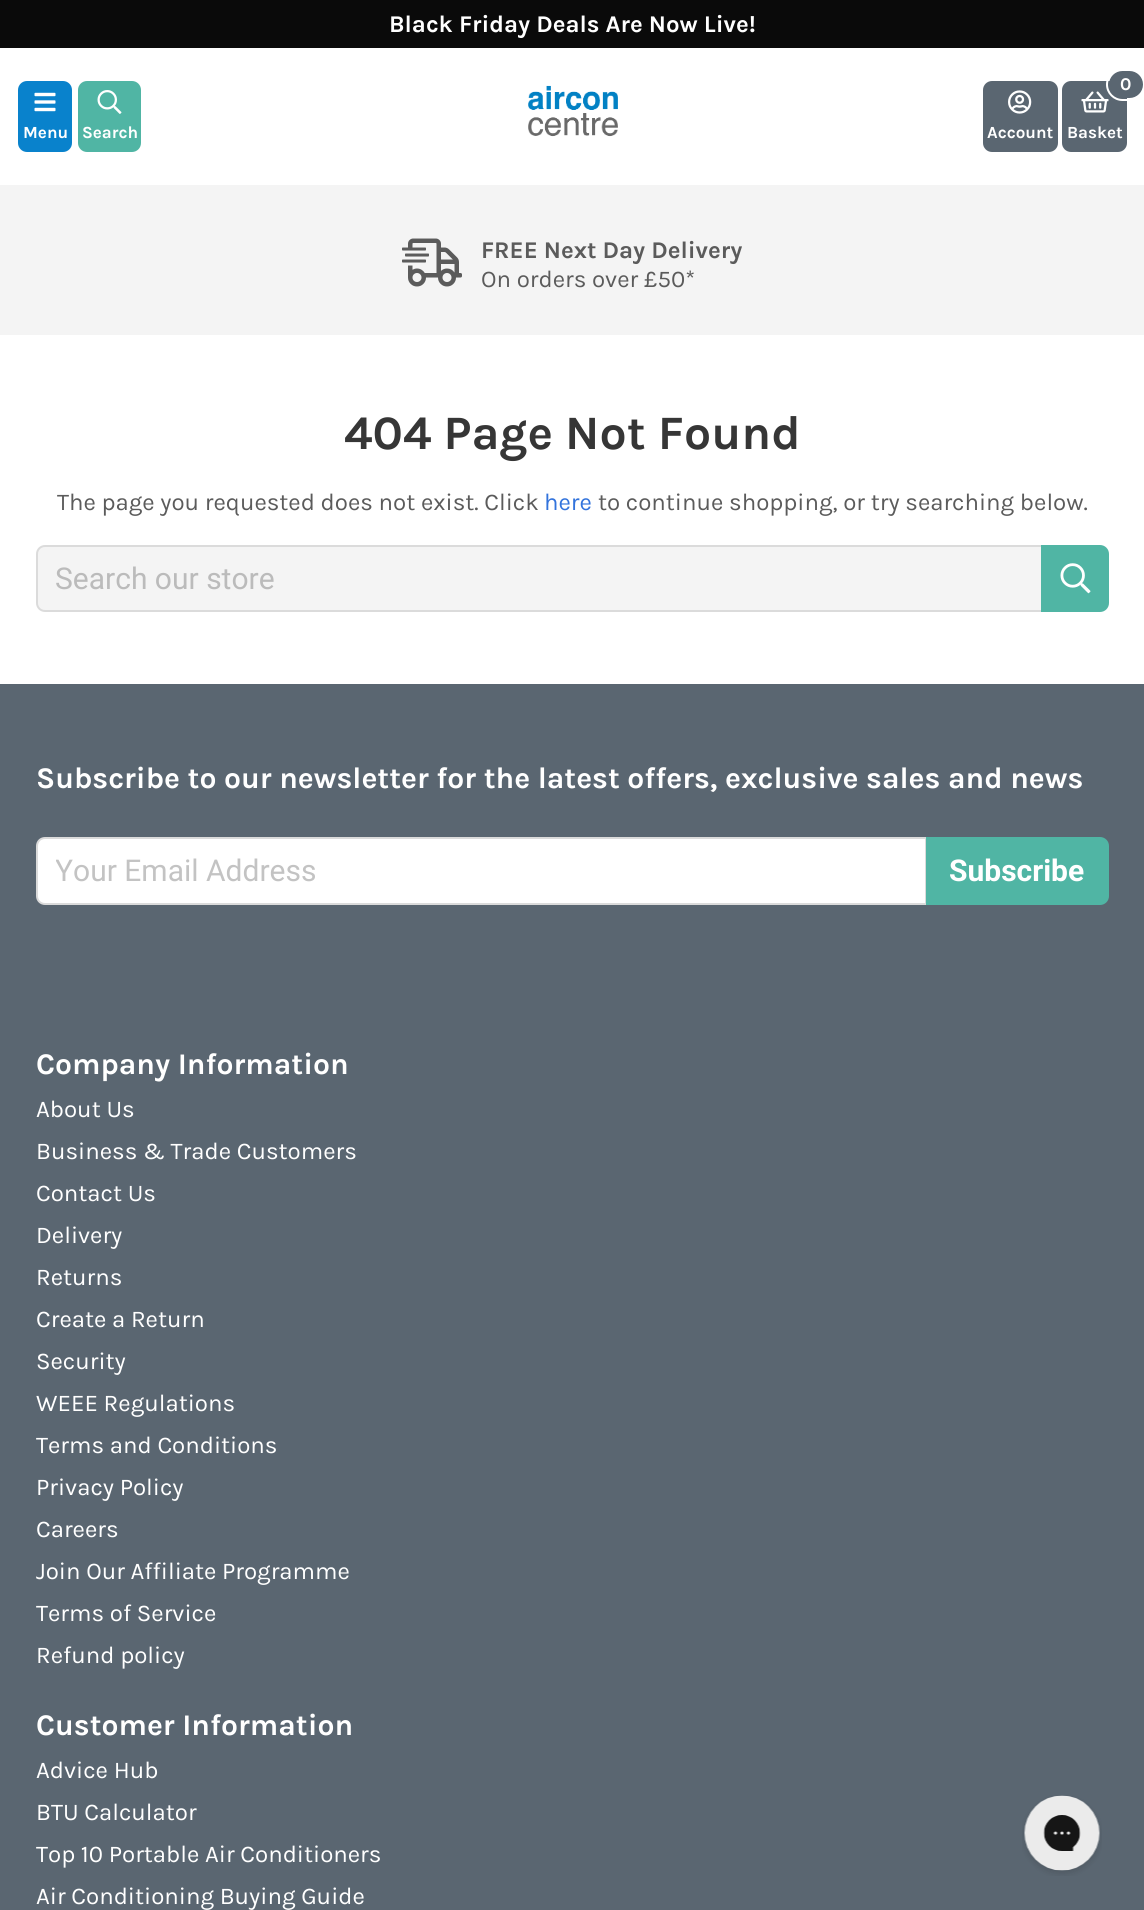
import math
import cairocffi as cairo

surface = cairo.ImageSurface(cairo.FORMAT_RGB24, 1144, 1910)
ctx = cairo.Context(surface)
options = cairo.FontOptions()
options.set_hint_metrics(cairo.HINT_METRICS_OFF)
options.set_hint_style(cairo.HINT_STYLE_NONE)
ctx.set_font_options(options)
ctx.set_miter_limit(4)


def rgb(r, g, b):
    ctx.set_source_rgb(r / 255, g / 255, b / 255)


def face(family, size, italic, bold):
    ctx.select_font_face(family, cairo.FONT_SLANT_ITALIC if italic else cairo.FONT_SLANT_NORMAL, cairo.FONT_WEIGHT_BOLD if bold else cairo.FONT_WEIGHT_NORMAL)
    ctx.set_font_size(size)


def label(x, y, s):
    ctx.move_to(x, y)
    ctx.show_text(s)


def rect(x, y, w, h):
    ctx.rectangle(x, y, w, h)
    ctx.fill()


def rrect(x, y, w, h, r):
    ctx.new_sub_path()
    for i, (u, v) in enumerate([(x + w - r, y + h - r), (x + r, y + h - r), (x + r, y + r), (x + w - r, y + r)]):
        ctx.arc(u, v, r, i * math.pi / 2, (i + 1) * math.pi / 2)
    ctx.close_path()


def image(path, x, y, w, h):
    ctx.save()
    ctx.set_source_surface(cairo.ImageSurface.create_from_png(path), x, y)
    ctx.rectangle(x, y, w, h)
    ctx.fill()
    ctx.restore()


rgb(255, 255, 255)
ctx.paint()
rgb(10, 10, 10)
rect(0, 0, 1144, 48)
face('Karla', 24, 0, 1)
rgb(255, 255, 255)
label(389, 32, 'Black Friday Deals Are Now Live!')
rgb(9, 130, 204)
rrect(18, 81, 54, 71, 9)
ctx.fill()
image('image0.png', 34, 92, 22, 20)
face('Karla', 17, 0, 1)
rgb(255, 255, 255)
label(23, 138, 'Menu')
rgb(80, 181, 164)
rrect(78, 81, 63, 71, 9)
ctx.fill()
image('image1.png', 97, 90, 25, 24)
rgb(255, 255, 255)
label(82, 138, 'Search')
image('image2.png', 528, 85, 90, 52)
rgb(90, 102, 113)
rrect(983, 81, 75, 71, 9)
ctx.fill()
image('image3.png', 1008, 90, 24, 24)
rgb(255, 255, 255)
label(987, 138, 'Account')
rgb(90, 102, 113)
rrect(1062, 81, 65, 71, 9)
ctx.fill()
image('image4.png', 1081, 91, 28, 22)
rrect(1107, 69, 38, 31, 15.5)
rgb(255, 255, 255)
ctx.stroke()
rgb(90, 102, 113)
rrect(1109, 71, 34, 27, 13.5)
ctx.fill()
face('Karla', 18, 0, 1)
rgb(255, 255, 255)
label(1120, 90, '0')
face('Karla', 17, 0, 1)
label(1067, 138, 'Basket')
rgb(244, 244, 244)
rect(0, 185, 1144, 150)
image('image5.png', 402, 238, 60, 49)
face('Karla', 24, 0, 1)
rgb(91, 91, 91)
label(481, 258, 'FREE Next Day Delivery')
face('Karla', 24, 0, 0)
label(481, 287, 'On orders over £50*')
face('Karla', 48, 0, 1)
rgb(54, 54, 54)
label(344, 449, '404 Page Not Found')
face('Karla', 24, 0, 0)
rgb(91, 91, 91)
label(57, 510, 'The page you requested does not exist. Click')
rgb(50, 115, 220)
label(544, 510, 'here')
rgb(91, 91, 91)
label(598, 510, 'to continue shopping, or try searching below.')
rgb(244, 244, 244)
ctx.new_path()
ctx.move_to(45, 546)
ctx.line_to(1042, 546)
ctx.line_to(1042, 611)
ctx.line_to(45, 611)
ctx.curve_to(40.5, 611, 37, 607.5, 37, 603)
ctx.line_to(37, 554)
ctx.curve_to(37, 549.5, 40.5, 546, 45, 546)
ctx.close_path()
ctx.fill_preserve()
rgb(219, 219, 219)
ctx.stroke()
face('Roboto', 30, 0, 0)
rgb(187, 187, 187)
label(55, 589, 'Search our store')
rgb(80, 181, 164)
ctx.new_path()
ctx.move_to(1041, 545)
ctx.line_to(1100, 545)
ctx.curve_to(1105, 545, 1109, 549, 1109, 554)
ctx.line_to(1109, 603)
ctx.curve_to(1109, 608, 1105, 612, 1100, 612)
ctx.line_to(1041, 612)
ctx.close_path()
ctx.fill()
image('image6.png', 1060, 563, 31, 31)
rgb(90, 102, 113)
rect(0, 684, 1144, 1226)
face('Karla', 30, 0, 1)
rgb(255, 255, 255)
label(36, 788, 'Subscribe to our newsletter for the latest offers, exclusive sales and news')
ctx.new_path()
ctx.move_to(45, 838)
ctx.line_to(926, 838)
ctx.line_to(926, 904)
ctx.line_to(45, 904)
ctx.curve_to(40.5, 904, 37, 900.5, 37, 896)
ctx.line_to(37, 846)
ctx.curve_to(37, 841.5, 40.5, 838, 45, 838)
ctx.close_path()
ctx.fill_preserve()
rgb(219, 219, 219)
ctx.stroke()
ctx.save()
ctx.rectangle(56, 854, 852, 36)
ctx.clip()
face('Roboto', 30, 0, 0)
rgb(195, 195, 195)
label(55, 881, 'Your Email Address')
ctx.restore()
rgb(80, 181, 164)
ctx.new_path()
ctx.move_to(926, 837)
ctx.line_to(1100, 837)
ctx.curve_to(1105, 837, 1109, 841, 1109, 846)
ctx.line_to(1109, 896)
ctx.curve_to(1109, 901, 1105, 905, 1100, 905)
ctx.line_to(926, 905)
ctx.close_path()
ctx.fill()
face('Roboto', 30, 0, 1)
rgb(255, 255, 255)
label(949, 881, 'Subscribe')
face('Karla', 30, 0, 1)
label(36, 1074, 'Company Information')
face('Karla', 24, 0, 0)
label(36, 1117, 'About Us')
label(36, 1159, 'Business & Trade Customers')
label(36, 1201, 'Contact Us')
label(36, 1243, 'Delivery')
label(36, 1285, 'Returns')
label(36, 1327, 'Create a Return')
label(36, 1369, 'Security')
label(36, 1411, 'WEEE Regulations')
label(36, 1453, 'Terms and Conditions')
label(36, 1495, 'Privacy Policy')
label(36, 1537, 'Careers')
label(36, 1579, 'Join Our Affiliate Programme')
label(36, 1621, 'Terms of Service')
label(36, 1663, 'Refund policy')
face('Karla', 30, 0, 1)
label(36, 1735, 'Customer Information')
face('Karla', 24, 0, 0)
label(36, 1778, 'Advice Hub')
label(36, 1820, 'BTU Calculator')
label(36, 1862, 'Top 10 Portable Air Conditioners')
label(36, 1904, 'Air Conditioning Buying Guide')
image('image7.png', 1022, 1795, 80, 81)
surface.write_to_png('render.png')
